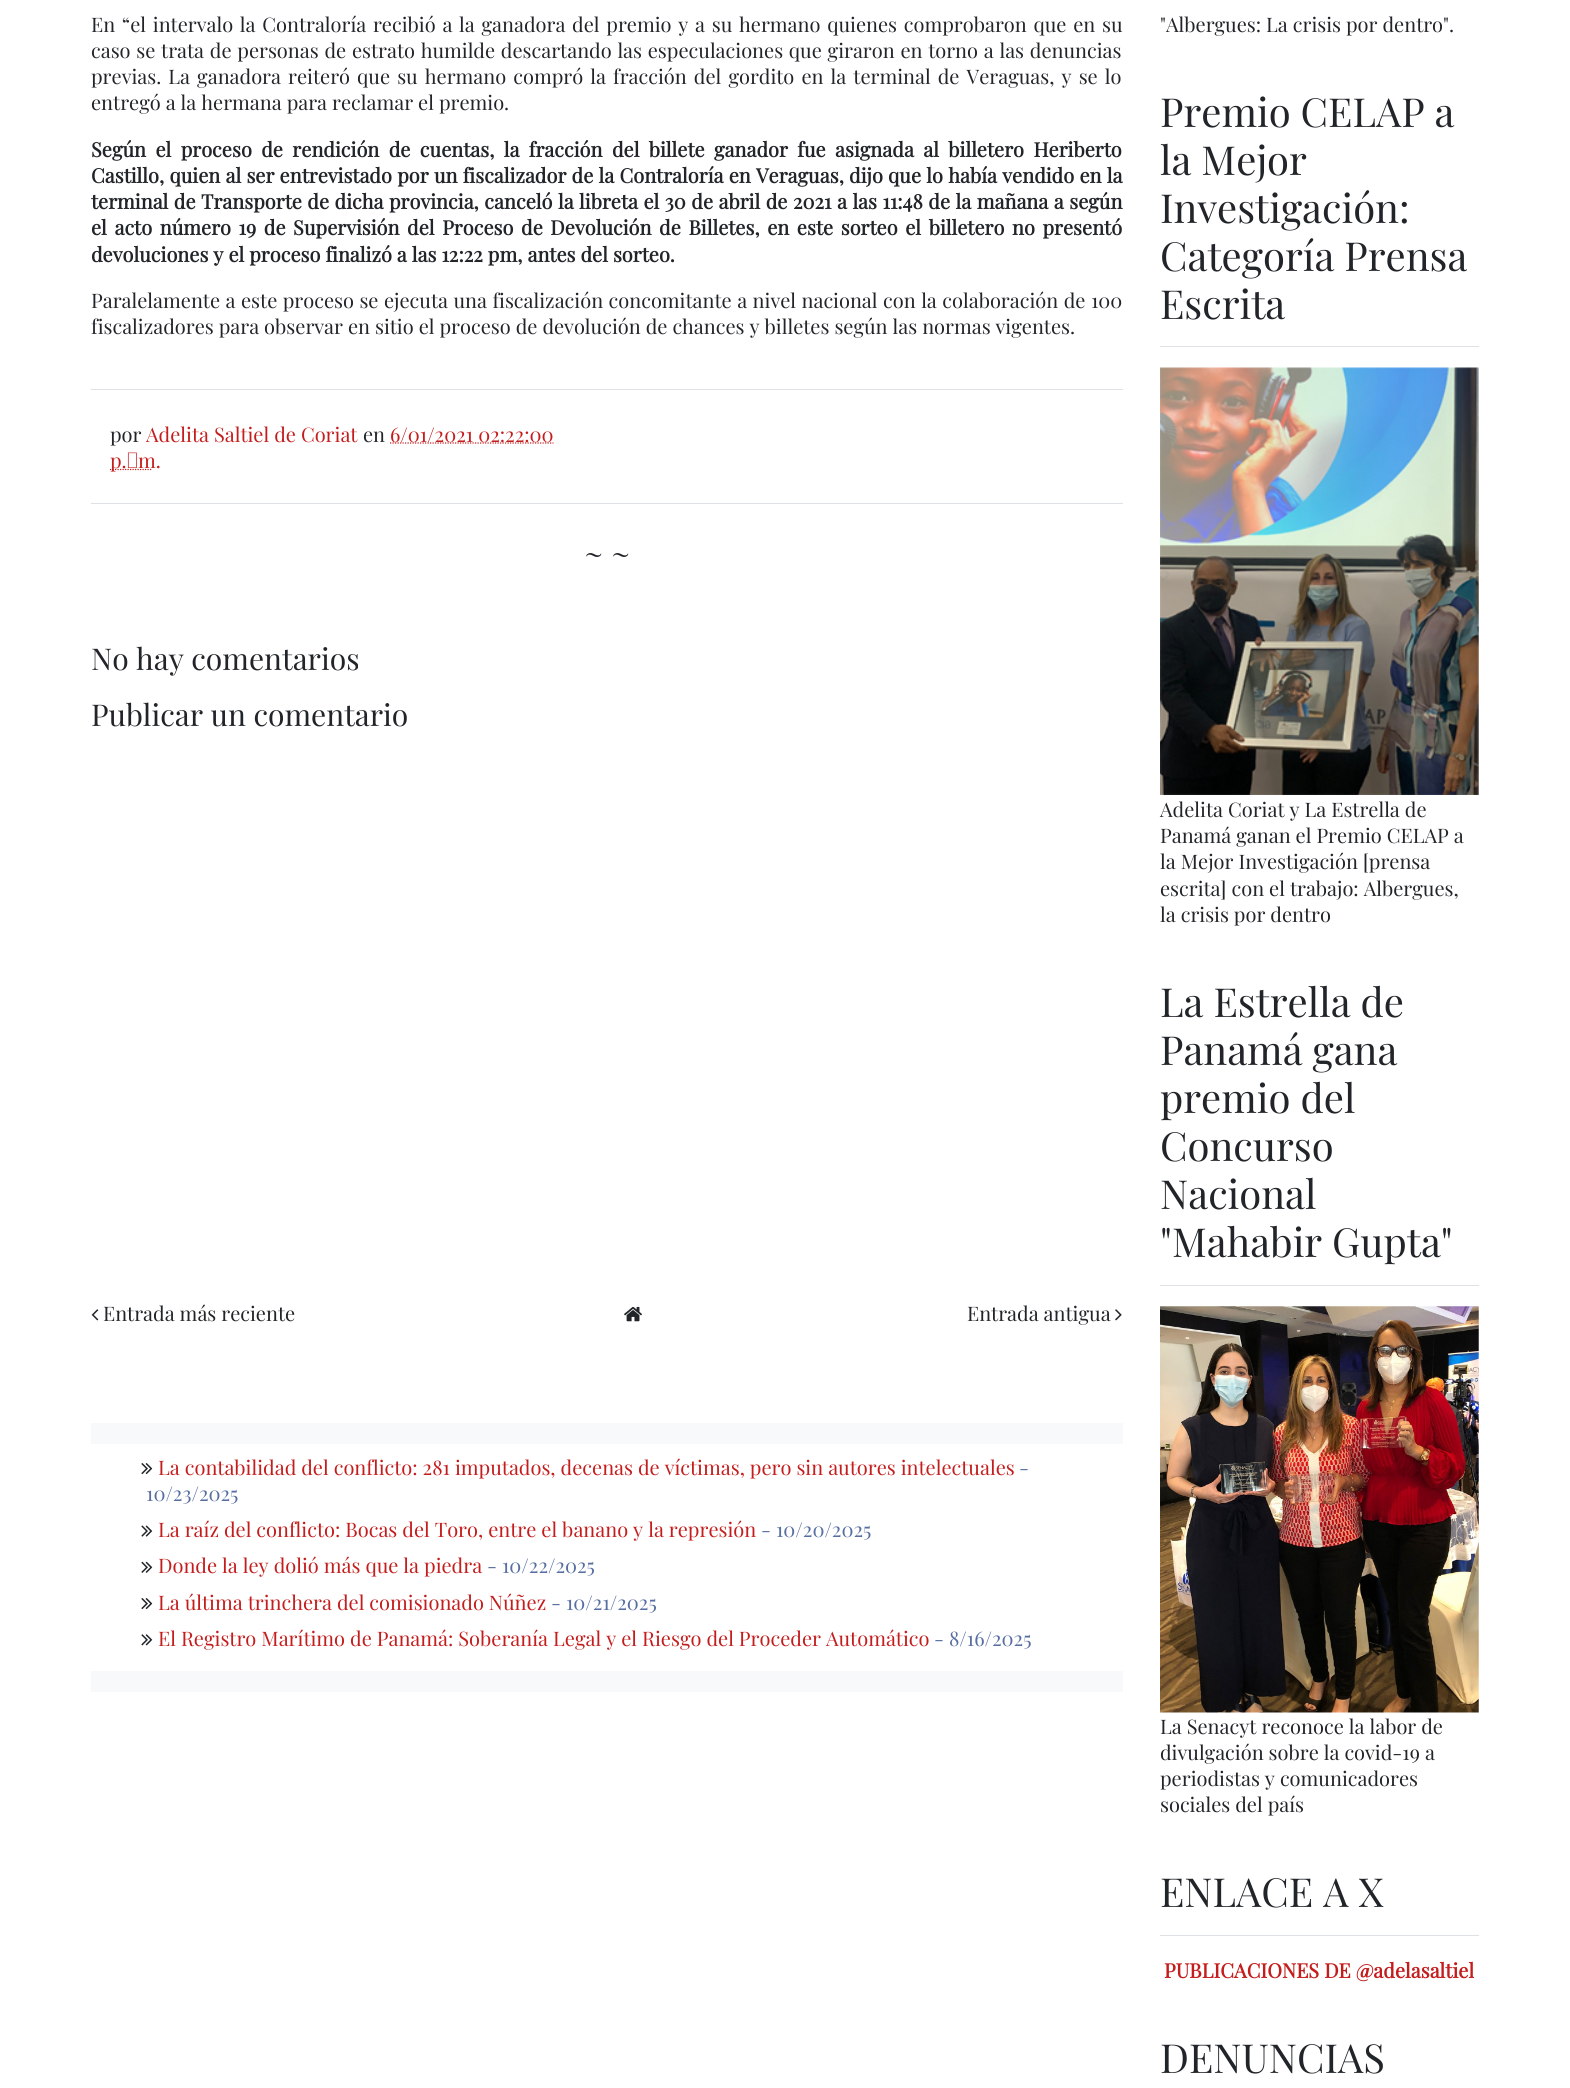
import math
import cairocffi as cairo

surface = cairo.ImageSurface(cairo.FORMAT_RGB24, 1570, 2088)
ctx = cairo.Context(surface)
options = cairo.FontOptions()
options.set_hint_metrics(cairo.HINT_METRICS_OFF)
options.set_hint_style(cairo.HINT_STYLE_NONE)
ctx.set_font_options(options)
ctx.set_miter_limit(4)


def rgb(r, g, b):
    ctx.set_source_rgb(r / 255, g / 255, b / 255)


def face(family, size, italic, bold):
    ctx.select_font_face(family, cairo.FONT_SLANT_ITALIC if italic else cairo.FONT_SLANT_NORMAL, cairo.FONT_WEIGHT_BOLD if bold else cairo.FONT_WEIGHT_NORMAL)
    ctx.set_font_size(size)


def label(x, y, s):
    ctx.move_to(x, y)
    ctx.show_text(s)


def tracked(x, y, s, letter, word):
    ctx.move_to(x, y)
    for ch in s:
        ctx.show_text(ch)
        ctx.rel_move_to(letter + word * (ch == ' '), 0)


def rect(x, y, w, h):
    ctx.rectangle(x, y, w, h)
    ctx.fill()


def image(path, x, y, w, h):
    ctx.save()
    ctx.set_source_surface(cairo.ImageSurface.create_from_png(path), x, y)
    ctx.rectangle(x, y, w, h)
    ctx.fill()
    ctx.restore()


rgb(255, 255, 255)
ctx.paint()
rgb(222, 226, 230)
rect(91, 389, 1032, 1)
face('Playfair Display', 20, 0, 0)
rgb(33, 37, 41)
tracked(91, 32, 'En “el intervalo la Contraloría recibió a la ganadora del premio y a su hermano quienes comprobaron que en su', 0, 1.75)
tracked(91, 58, 'caso se trata de personas de estrato humilde descartando las especulaciones que giraron en torno a las denuncias', 0, 0.75)
tracked(91, 84, 'previas. La ganadora reiteró que su hermano compró la fracción del gordito en la terminal de Veraguas, y se lo', 0, 2.1)
label(91, 110, 'entregó a la hermana para reclamar el premio.')
face('Playfair Display', 20, 0, 1)
tracked(91, 157, 'Según el proceso de rendición de cuentas, la fracción del billete ganador fue asignada al billetero Heriberto', 0, 4.4)
tracked(91, 183, 'Castillo, quien al ser entrevistado por un fiscalizador de la Contraloría en Veraguas, dijo que lo había vendido en la', 0, 0.25)
tracked(91, 209, 'terminal de Transporte de dicha provincia, canceló la libreta el 30 de abril de 2021 a las 11:48 de la mañana a según', 0, 0.5)
tracked(91, 235, 'el acto número 19 de Supervisión del Proceso de Devolución de Billetes, en este sorteo el billetero no presentó', 0, 2.6)
label(91, 262, 'devoluciones y el proceso finalizó a las 12:22 pm, antes del sorteo.')
face('Playfair Display', 20, 0, 0)
tracked(91, 308, 'Paralelamente a este proceso se ejecuta una fiscalización concomitante a nivel nacional con la colaboración de 100', 0, 0.5)
label(91, 334, 'fiscalizadores para observar en sitio el proceso de devolución de chances y billetes según las normas vigentes.')
rgb(222, 226, 230)
rect(91, 503, 1032, 1)
rgb(33, 37, 41)
label(110, 442, 'por')
rgb(196, 29, 29)
label(146, 442, 'Adelita Saltiel de Coriat')
rgb(33, 37, 41)
label(363, 442, 'en')
ctx.new_path()
ctx.move_to(390, 443)
ctx.line_to(553.5, 443)
rgb(196, 29, 29)
ctx.set_line_width(1.2)
ctx.set_dash([1.25, 1.25])
ctx.stroke()
label(390, 442, '6/01/2021 02:22:00')
ctx.new_path()
ctx.move_to(110, 469.5)
ctx.line_to(152, 469.5)
ctx.stroke()
label(110, 468, 'p. m.')
face('Playfair Display', 30, 0, 0)
rgb(33, 37, 41)
label(584, 564, '~ ~')
label(91, 670, 'No hay comentarios')
label(91, 726, 'Publicar un comentario')
image('image0.png', 91, 1309, 8, 12)
face('Playfair Display', 20, 0, 0)
label(103, 1321, 'Entrada más reciente')
image('image1.png', 624, 1306, 18, 16)
label(967, 1321, 'Entrada antigua')
image('image2.png', 1115, 1309, 7, 12)
rgb(248, 249, 250)
rect(91, 1423, 1032, 21)
image('image3.png', 141, 1463, 12, 12)
rgb(196, 29, 29)
label(158, 1475, 'La contabilidad del conflicto: 281 imputados, decenas de víctimas, pero sin autores intelectuales')
rgb(87, 110, 161)
label(1019, 1475, '-')
label(146, 1501, '10/23/2025')
image('image4.png', 141, 1525, 12, 12)
rgb(196, 29, 29)
label(158, 1537, 'La raíz del conflicto: Bocas del Toro, entre el banano y la represión')
rgb(87, 110, 161)
label(761, 1537, '- 10/20/2025')
image('image5.png', 141, 1561, 12, 12)
rgb(196, 29, 29)
label(158, 1573, 'Donde la ley dolió más que la piedra')
rgb(87, 110, 161)
label(487, 1573, '- 10/22/2025')
image('image3.png', 141, 1598, 12, 12)
rgb(196, 29, 29)
label(158, 1610, 'La última trinchera del comisionado Núñez')
rgb(87, 110, 161)
label(551, 1610, '- 10/21/2025')
image('image6.png', 141, 1634, 12, 12)
rgb(196, 29, 29)
label(158, 1646, 'El Registro Marítimo de Panamá: Soberanía Legal y el Riesgo del Proceder Automático')
rgb(87, 110, 161)
label(934, 1646, '- 8/16/2025')
rgb(248, 249, 250)
rect(91, 1671, 1032, 21)
rgb(33, 37, 41)
label(1160, 32, '"Albergues: La crisis por dentro".')
rgb(222, 226, 230)
rect(1160, 346, 319, 1)
face('Playfair Display', 40, 0, 0)
rgb(33, 37, 41)
label(1160, 127, 'Premio CELAP a')
label(1160, 175, 'la Mejor')
label(1160, 223, 'Investigación:')
label(1160, 271, 'Categoría Prensa')
label(1160, 319, 'Escrita')
image('image7.png', 1160, 367, 319, 428)
face('Playfair Display', 20, 0, 0)
label(1160, 817, 'Adelita Coriat y La Estrella de')
label(1160, 843, 'Panamá ganan el Premio CELAP a')
label(1160, 869, 'la Mejor Investigación [prensa')
label(1160, 896, 'escrita] con el trabajo: Albergues,')
label(1160, 922, 'la crisis por dentro')
rgb(222, 226, 230)
rect(1160, 1285, 319, 1)
face('Playfair Display', 40, 0, 0)
rgb(33, 37, 41)
label(1160, 1017, 'La Estrella de')
label(1160, 1065, 'Panamá gana')
label(1160, 1113, 'premio del')
label(1160, 1161, 'Concurso')
label(1160, 1209, 'Nacional')
label(1160, 1257, '"Mahabir Gupta"')
image('image8.png', 1160, 1306, 319, 407)
face('Playfair Display', 20, 0, 0)
label(1160, 1734, 'La Senacyt reconoce la labor de')
label(1160, 1760, 'divulgación sobre la covid-19 a')
label(1160, 1786, 'periodistas y comunicadores')
label(1160, 1812, 'sociales del país')
rgb(222, 226, 230)
rect(1160, 1935, 319, 1)
face('Playfair Display', 40, 0, 0)
rgb(33, 37, 41)
label(1160, 1907, 'ENLACE A X')
face('Playfair Display', 20, 0, 1)
rgb(196, 29, 29)
label(1164, 1978, 'PUBLICACIONES DE @adelasaltiel')
face('Playfair Display', 40, 0, 0)
rgb(33, 37, 41)
label(1160, 2073, 'DENUNCIAS')
surface.write_to_png('render.png')
